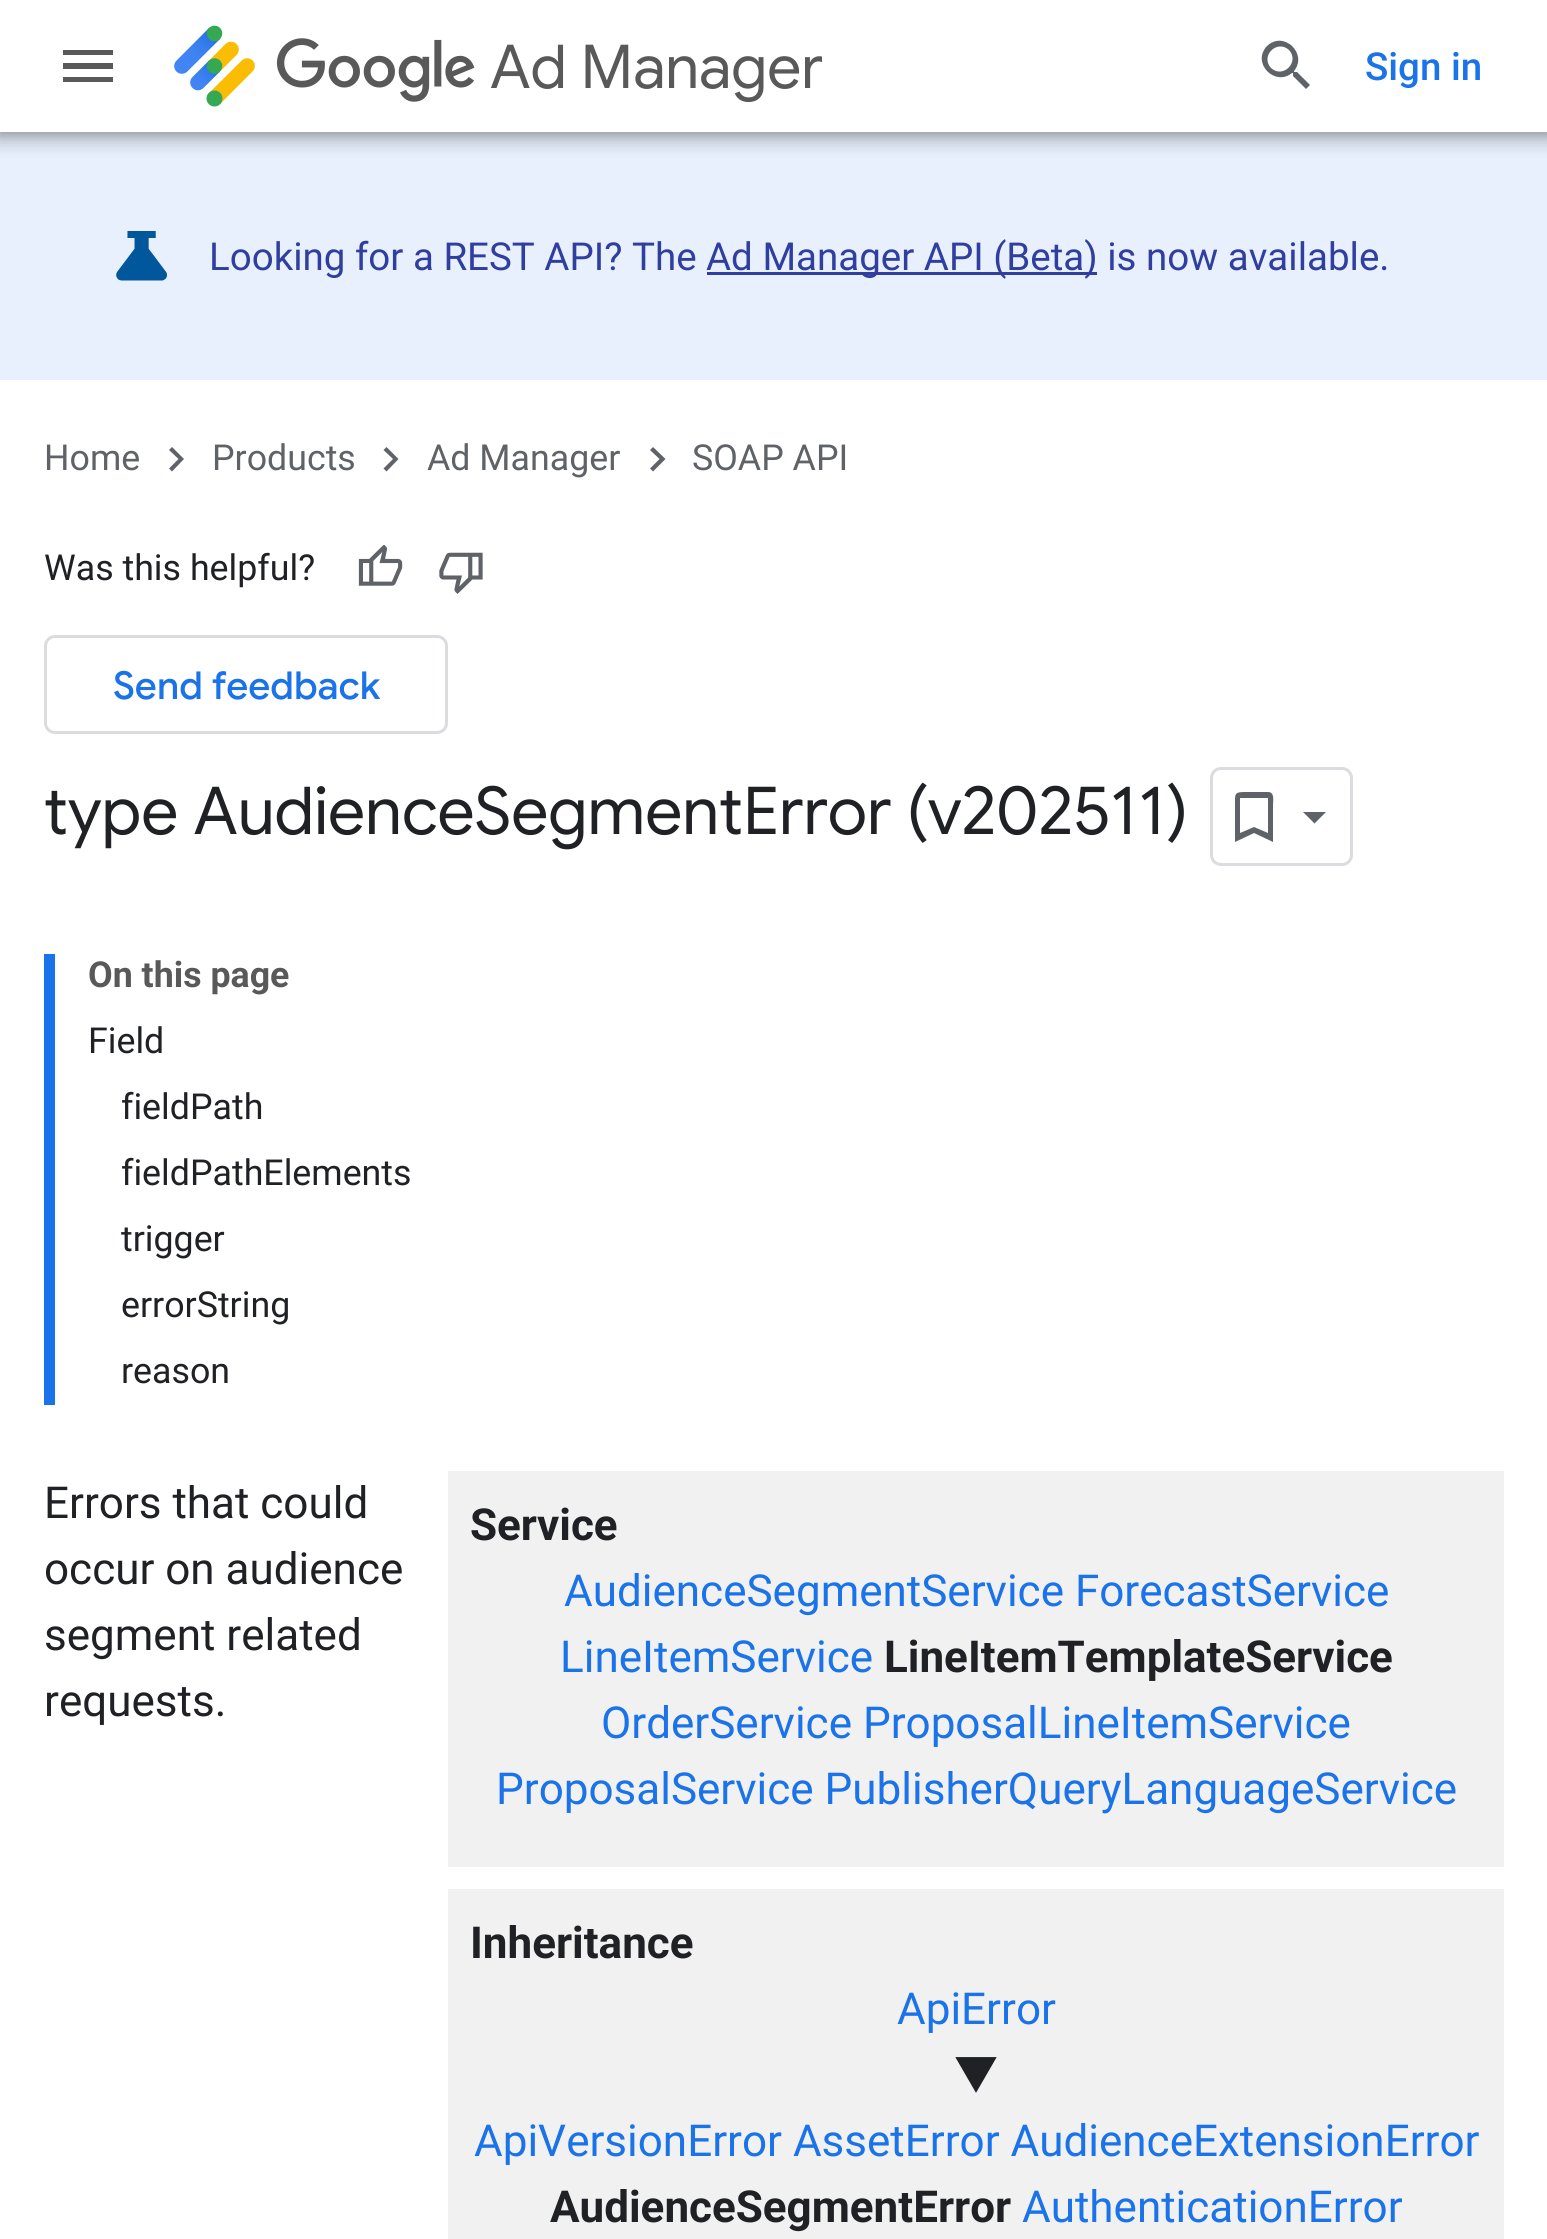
import math
import cairocffi as cairo

surface = cairo.ImageSurface(cairo.FORMAT_RGB24, 1547, 2239)
ctx = cairo.Context(surface)
options = cairo.FontOptions()
options.set_hint_metrics(cairo.HINT_METRICS_OFF)
options.set_hint_style(cairo.HINT_STYLE_NONE)
ctx.set_font_options(options)
ctx.set_miter_limit(4)


def rgb(r, g, b):
    ctx.set_source_rgb(r / 255, g / 255, b / 255)


def face(family, size, italic, bold):
    ctx.select_font_face(family, cairo.FONT_SLANT_ITALIC if italic else cairo.FONT_SLANT_NORMAL, cairo.FONT_WEIGHT_BOLD if bold else cairo.FONT_WEIGHT_NORMAL)
    ctx.set_font_size(size)


def label(x, y, s):
    ctx.move_to(x, y)
    ctx.show_text(s)


def rect(x, y, w, h):
    ctx.rectangle(x, y, w, h)
    ctx.fill()


def rrect(x, y, w, h, r):
    ctx.new_sub_path()
    for i, (u, v) in enumerate([(x + w - r, y + h - r), (x + r, y + h - r), (x + r, y + r), (x + w - r, y + r)]):
        ctx.arc(u, v, r, i * math.pi / 2, (i + 1) * math.pi / 2)
    ctx.close_path()


def soft_shadow(x, y, w, h, r, blur, alpha):
    ctx.push_group_with_content(cairo.CONTENT_ALPHA)
    ctx.set_operator(cairo.OPERATOR_SOURCE)
    for i in range(15, -16, -2):
        e = blur * i / 6
        if min(w, h) + 2 * e > 0:
            ctx.set_source_rgba(0, 0, 0, alpha * math.erfc((i - 1) / 8.5) / 2)
            rrect(x - e, y - e, w + 2 * e, h + 2 * e, max(0, min(r + e + blur * .6, min(w, h) / 2 + e)))
            ctx.fill()
    ctx.mask(ctx.pop_group())


def image(path, x, y, w, h):
    ctx.save()
    ctx.set_source_surface(cairo.ImageSurface.create_from_png(path), x, y)
    ctx.rectangle(x, y, w, h)
    ctx.fill()
    ctx.restore()


rgb(255, 255, 255)
ctx.paint()
rgb(232, 240, 254)
rect(0, 132, 1547, 248)
rgb(60, 64, 67)
soft_shadow(-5, 0, 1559, 143, 0, 8, 0.15)
soft_shadow(0, 3, 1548, 132, 0, 3, 0.3)
soft_shadow(-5, 132, 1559, 11, 0, 8, 0.15)
rgb(255, 255, 255)
rect(0, 0, 1547, 132)
rgb(89, 89, 89)
ctx.new_path()
ctx.move_to(63, 50)
ctx.line_to(113, 50)
ctx.line_to(113, 55)
ctx.line_to(63, 55)
ctx.close_path()
ctx.move_to(63, 69)
ctx.line_to(63, 63)
ctx.line_to(113, 63)
ctx.line_to(113, 69)
ctx.close_path()
ctx.move_to(63, 82)
ctx.line_to(63, 77)
ctx.line_to(113, 77)
ctx.line_to(113, 82)
ctx.close_path()
ctx.fill()
image('image0.png', 174, 25, 81, 82)
image('image1.png', 276, 38, 199, 64)
ctx.save()
ctx.rectangle(275, 22, 547, 88)
ctx.clip()
face('Google Sans', 60.5, 0, 0)
label(490, 88, 'Ad Manager')
ctx.restore()
rgb(95, 99, 104)
ctx.new_path()
ctx.move_to(1271, 68)
ctx.curve_to(1283, 79, 1300, 62, 1289, 50)
ctx.curve_to(1277, 39, 1260, 56, 1271, 68)
ctx.close_path()
ctx.move_to(1297, 72)
ctx.line_to(1310, 85)
ctx.line_to(1306, 89)
ctx.line_to(1293, 76)
ctx.line_to(1293, 73)
ctx.line_to(1292, 73)
ctx.curve_to(1275, 87, 1251, 63, 1267, 46)
ctx.curve_to(1284, 30, 1308, 54, 1294, 71)
ctx.line_to(1294, 72)
ctx.close_path()
ctx.fill()
face('Roboto Medium', 38.5, 0, 0)
rgb(26, 115, 232)
label(1365, 80, 'Sign in')
image('image2.png', 116, 231, 51, 50)
face('Roboto', 38.5, 0, 0)
rgb(48, 63, 159)
label(209, 270, 'Looking for a REST API? The')
rect(707, 272, 390, 3)
label(706, 270, 'Ad Manager API (Beta) is now available.')
face('Roboto', 35.75, 0, 0)
rgb(95, 99, 104)
label(44, 470, 'Home')
ctx.new_path()
ctx.move_to(172, 447)
ctx.line_to(184, 459)
ctx.line_to(172, 471.5)
ctx.line_to(169, 468.5)
ctx.line_to(178.5, 459)
ctx.line_to(169, 450)
ctx.close_path()
ctx.fill()
label(212, 470, 'Products')
ctx.new_path()
ctx.move_to(386.5, 447)
ctx.line_to(398.5, 459)
ctx.line_to(386.5, 471.5)
ctx.line_to(383.5, 468.5)
ctx.line_to(393, 459)
ctx.line_to(383.5, 450)
ctx.close_path()
ctx.fill()
label(427, 470, 'Ad Manager')
ctx.new_path()
ctx.move_to(653, 447)
ctx.line_to(665.5, 459)
ctx.line_to(653, 471.5)
ctx.line_to(650, 468.5)
ctx.line_to(659.5, 459)
ctx.line_to(650, 450)
ctx.close_path()
ctx.fill()
label(692, 470, 'SOAP API')
rgb(32, 33, 36)
label(44, 580, 'Was this helpful?')
image('image3.png', 358, 545, 45, 41)
image('image4.png', 439, 552, 44, 42)
rrect(45.5, 636.5, 401, 96, 9.5)
rgb(218, 220, 224)
ctx.set_line_width(3)
ctx.stroke()
face('Google Sans Medium', 38.5, 0, 0)
rgb(26, 115, 232)
label(113, 699, 'Send feedback')
face('Google Sans', 66, 0, 0)
rgb(32, 33, 36)
label(44, 834, 'type AudienceSegmentError (v202511)')
rrect(1211.5, 768.5, 140, 96, 9.5)
rgb(218, 220, 224)
ctx.stroke()
rgb(95, 99, 104)
ctx.new_path()
ctx.move_to(1268, 833)
ctx.line_to(1268, 798)
ctx.line_to(1240, 798)
ctx.line_to(1240, 833)
ctx.line_to(1254, 827)
ctx.close_path()
ctx.move_to(1268, 792)
ctx.curve_to(1275, 792, 1273, 801, 1273, 805)
ctx.line_to(1273, 842)
ctx.line_to(1254, 833)
ctx.line_to(1235, 842)
ctx.line_to(1235, 805)
ctx.curve_to(1235, 794, 1234, 792, 1245, 792)
ctx.close_path()
ctx.fill()
ctx.new_path()
ctx.move_to(1303, 812)
ctx.line_to(1326, 812)
ctx.line_to(1314.5, 823.5)
ctx.close_path()
ctx.fill()
rgb(26, 115, 232)
rect(44, 954, 11, 451)
face('Roboto', 35.75, 0, 1)
rgb(89, 89, 89)
label(88, 987, 'On this page')
face('Roboto', 35.75, 0, 0)
rgb(32, 33, 36)
label(88, 1053, 'Field')
label(121, 1119, 'fieldPath')
label(121, 1185, 'fieldPathElements')
label(121, 1251, 'trigger')
label(121, 1317, 'errorString')
label(121, 1383, 'reason')
face('Roboto', 44, 0, 0)
label(44, 1518, 'Errors that could')
label(44, 1584, 'occur on audience')
label(44, 1650, 'segment related')
label(44, 1716, 'requests.')
rgb(241, 241, 241)
rect(448, 1471, 1056, 396)
face('Roboto', 44, 0, 1)
rgb(32, 33, 36)
label(470, 1540, 'Service')
face('Roboto', 44, 0, 0)
rgb(26, 115, 232)
label(564, 1606, 'AudienceSegmentService ForecastService')
label(560, 1672, 'LineItemService')
face('Roboto', 44, 0, 1)
rgb(32, 33, 36)
label(884, 1672, 'LineItemTemplateService')
face('Roboto', 44, 0, 0)
rgb(26, 115, 232)
label(601, 1738, 'OrderService ProposalLineItemService')
label(496, 1804, 'ProposalService PublisherQueryLanguageService')
rgb(241, 241, 241)
rect(448, 1889, 1056, 350)
face('Roboto', 44, 0, 1)
rgb(32, 33, 36)
label(470, 1958, 'Inheritance')
face('Roboto', 44, 0, 0)
rgb(26, 115, 232)
label(897, 2024, 'ApiError')
face('Noto Sans JP', 44, 0, 0)
rgb(32, 33, 36)
label(954, 2090, '▼')
face('Roboto', 44, 0, 0)
rgb(26, 115, 232)
label(474, 2156, 'ApiVersionError AssetError AudienceExtensionError')
face('Roboto', 44, 0, 1)
rgb(32, 33, 36)
label(550, 2222, 'AudienceSegmentError')
face('Roboto', 44, 0, 0)
rgb(26, 115, 232)
label(1022, 2222, 'AuthenticationError')
surface.write_to_png('render.png')
